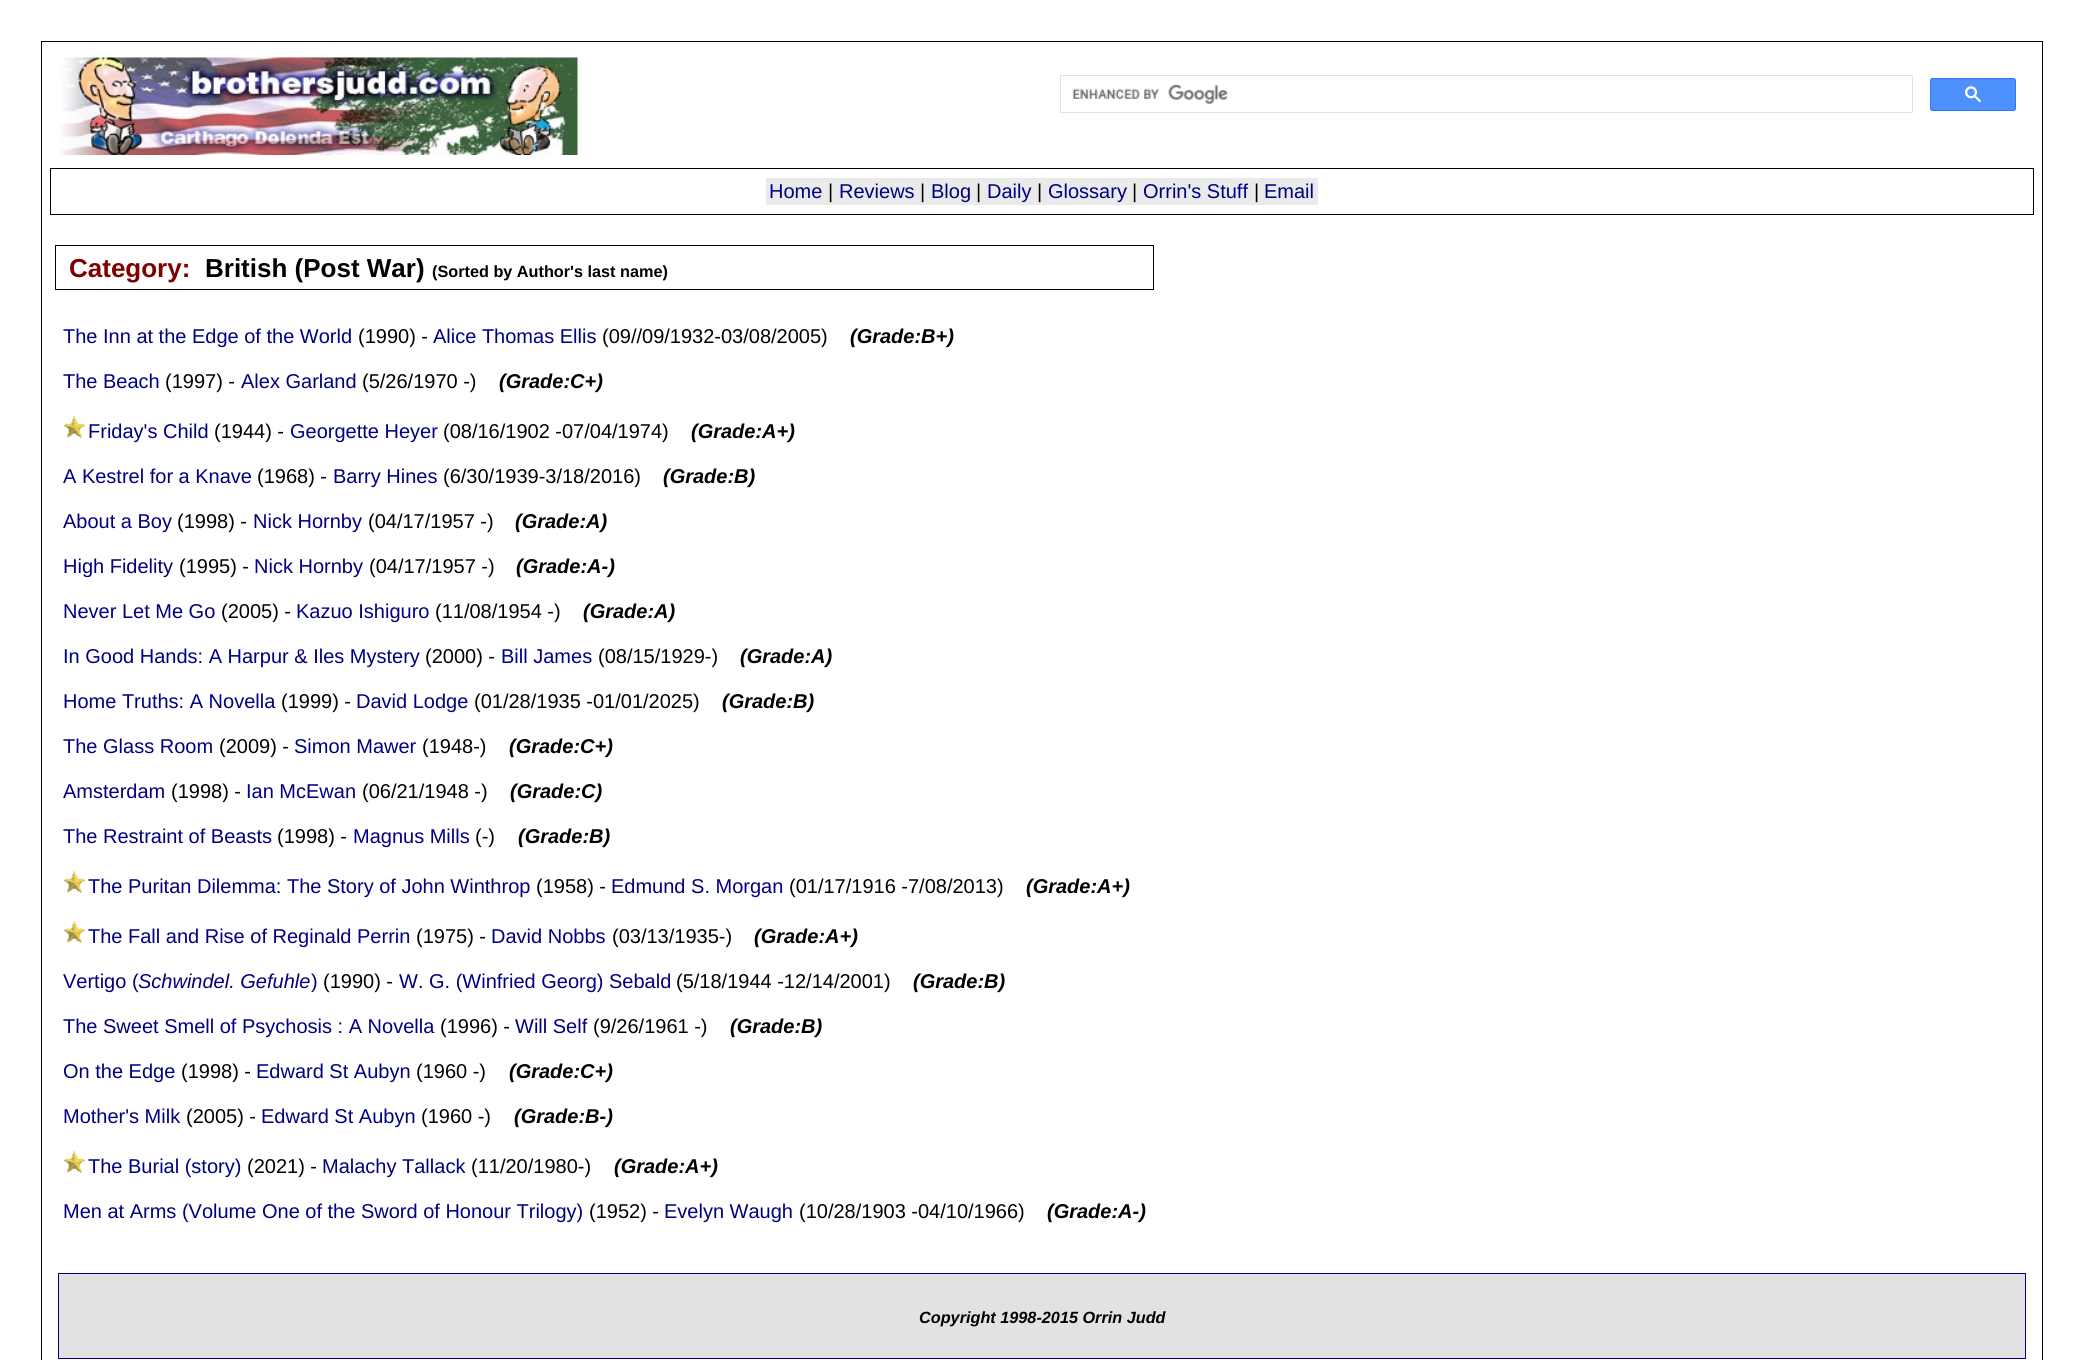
import math
import cairocffi as cairo

surface = cairo.ImageSurface(cairo.FORMAT_RGB24, 2083, 1360)
ctx = cairo.Context(surface)
options = cairo.FontOptions()
options.set_hint_metrics(cairo.HINT_METRICS_OFF)
options.set_hint_style(cairo.HINT_STYLE_NONE)
ctx.set_font_options(options)
ctx.set_miter_limit(4)


def rgb(r, g, b):
    ctx.set_source_rgb(r / 255, g / 255, b / 255)


def face(family, size, italic, bold):
    ctx.select_font_face(family, cairo.FONT_SLANT_ITALIC if italic else cairo.FONT_SLANT_NORMAL, cairo.FONT_WEIGHT_BOLD if bold else cairo.FONT_WEIGHT_NORMAL)
    ctx.set_font_size(size)


def label(x, y, s):
    ctx.move_to(x, y)
    ctx.show_text(s)


def rect(x, y, w, h):
    ctx.rectangle(x, y, w, h)
    ctx.fill()


def rrect(x, y, w, h, r):
    ctx.new_sub_path()
    for i, (u, v) in enumerate([(x + w - r, y + h - r), (x + r, y + h - r), (x + r, y + r), (x + w - r, y + r)]):
        ctx.arc(u, v, r, i * math.pi / 2, (i + 1) * math.pi / 2)
    ctx.close_path()


def image(path, x, y, w, h):
    ctx.save()
    ctx.set_source_surface(cairo.ImageSurface.create_from_png(path), x, y)
    ctx.rectangle(x, y, w, h)
    ctx.fill()
    ctx.restore()


rgb(255, 255, 255)
ctx.paint()
ctx.rectangle(41.5, 41.5, 2001, 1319)
rgb(0, 0, 0)
ctx.set_line_width(1)
ctx.stroke()
image('image0.png', 60, 57, 518, 98)
ctx.rectangle(1060.5, 75.5, 852, 37)
rgb(223, 225, 229)
ctx.stroke()
image('image1.png', 1072, 85, 156, 19)
rgb(77, 144, 254)
rrect(1930.5, 78.5, 85, 32, 2)
ctx.fill_preserve()
rgb(48, 121, 237)
ctx.stroke()
image('image2.png', 1965, 86, 16, 17)
ctx.rectangle(50.5, 168.5, 1983, 46)
rgb(0, 0, 0)
ctx.stroke()
rgb(234, 234, 234)
rect(766, 178, 552, 27)
face('Liberation Sans', 20, 0, 0)
rgb(0, 0, 128)
label(769, 198, 'Home')
rgb(0, 0, 0)
label(828, 198, '|')
rgb(0, 0, 128)
label(839, 198, 'Reviews')
rgb(0, 0, 0)
label(920, 198, '|')
rgb(0, 0, 128)
label(931, 198, 'Blog')
rgb(0, 0, 0)
label(976, 198, '|')
rgb(0, 0, 128)
label(987, 198, 'Daily')
rgb(0, 0, 0)
label(1037, 198, '|')
rgb(0, 0, 128)
label(1048, 198, 'Glossary')
rgb(0, 0, 0)
label(1132, 198, '|')
rgb(0, 0, 128)
label(1143, 198, 'Orrin\'s Stuff')
rgb(0, 0, 0)
label(1254, 198, '|')
rgb(0, 0, 128)
label(1264, 198, 'Email')
ctx.rectangle(55.5, 245.5, 1098, 44)
rgb(0, 0, 0)
ctx.stroke()
face('Liberation Sans', 26, 0, 1)
rgb(128, 0, 0)
label(69, 277, 'Category:')
rgb(0, 0, 0)
label(205, 277, 'British (Post War)')
face('Liberation Sans', 16.25, 0, 1)
label(432, 277, '(Sorted by Author\'s last name)')
face('Liberation Sans', 20, 0, 0)
rgb(0, 0, 128)
label(63, 343, 'The Inn at the Edge of the World')
rgb(0, 0, 0)
label(358, 343, '(1990) -')
rgb(0, 0, 128)
label(433, 343, 'Alice Thomas Ellis')
rgb(0, 0, 0)
label(602, 343, '(09//09/1932-03/08/2005)')
face('Liberation Sans', 20, 1, 1)
label(850, 343, '(Grade:B+)')
face('Liberation Sans', 20, 0, 0)
rgb(0, 0, 128)
label(63, 388, 'The Beach')
rgb(0, 0, 0)
label(165, 388, '(1997) -')
rgb(0, 0, 128)
label(241, 388, 'Alex Garland')
rgb(0, 0, 0)
label(362, 388, '(5/26/1970 -)')
face('Liberation Sans', 20, 1, 1)
label(499, 388, '(Grade:C+)')
image('image3.png', 63, 416, 23, 22)
face('Liberation Sans', 20, 0, 0)
rgb(0, 0, 128)
label(88, 438, 'Friday\'s Child')
rgb(0, 0, 0)
label(214, 438, '(1944) -')
rgb(0, 0, 128)
label(290, 438, 'Georgette Heyer')
rgb(0, 0, 0)
label(443, 438, '(08/16/1902 -07/04/1974)')
face('Liberation Sans', 20, 1, 1)
label(691, 438, '(Grade:A+)')
face('Liberation Sans', 20, 0, 0)
rgb(0, 0, 128)
label(63, 483, 'A Kestrel for a Knave')
rgb(0, 0, 0)
label(257, 483, '(1968) -')
rgb(0, 0, 128)
label(333, 483, 'Barry Hines')
rgb(0, 0, 0)
label(443, 483, '(6/30/1939-3/18/2016)')
face('Liberation Sans', 20, 1, 1)
label(663, 483, '(Grade:B)')
face('Liberation Sans', 20, 0, 0)
rgb(0, 0, 128)
label(63, 528, 'About a Boy')
rgb(0, 0, 0)
label(177, 528, '(1998) -')
rgb(0, 0, 128)
label(253, 528, 'Nick Hornby')
rgb(0, 0, 0)
label(368, 528, '(04/17/1957 -)')
face('Liberation Sans', 20, 1, 1)
label(515, 528, '(Grade:A)')
face('Liberation Sans', 20, 0, 0)
rgb(0, 0, 128)
label(63, 573, 'High Fidelity')
rgb(0, 0, 0)
label(179, 573, '(1995) -')
rgb(0, 0, 128)
label(254, 573, 'Nick Hornby')
rgb(0, 0, 0)
label(369, 573, '(04/17/1957 -)')
face('Liberation Sans', 20, 1, 1)
label(516, 573, '(Grade:A-)')
face('Liberation Sans', 20, 0, 0)
rgb(0, 0, 128)
label(63, 618, 'Never Let Me Go')
rgb(0, 0, 0)
label(221, 618, '(2005) -')
rgb(0, 0, 128)
label(296, 618, 'Kazuo Ishiguro')
rgb(0, 0, 0)
label(435, 618, '(11/08/1954 -)')
face('Liberation Sans', 20, 1, 1)
label(583, 618, '(Grade:A)')
face('Liberation Sans', 20, 0, 0)
rgb(0, 0, 128)
label(63, 663, 'In Good Hands: A Harpur & Iles Mystery')
rgb(0, 0, 0)
label(425, 663, '(2000) -')
rgb(0, 0, 128)
label(501, 663, 'Bill James')
rgb(0, 0, 0)
label(598, 663, '(08/15/1929-)')
face('Liberation Sans', 20, 1, 1)
label(740, 663, '(Grade:A)')
face('Liberation Sans', 20, 0, 0)
rgb(0, 0, 128)
label(63, 708, 'Home Truths: A Novella')
rgb(0, 0, 0)
label(281, 708, '(1999) -')
rgb(0, 0, 128)
label(356, 708, 'David Lodge')
rgb(0, 0, 0)
label(474, 708, '(01/28/1935 -01/01/2025)')
face('Liberation Sans', 20, 1, 1)
label(722, 708, '(Grade:B)')
face('Liberation Sans', 20, 0, 0)
rgb(0, 0, 128)
label(63, 753, 'The Glass Room')
rgb(0, 0, 0)
label(219, 753, '(2009) -')
rgb(0, 0, 128)
label(294, 753, 'Simon Mawer')
rgb(0, 0, 0)
label(422, 753, '(1948-)')
face('Liberation Sans', 20, 1, 1)
label(509, 753, '(Grade:C+)')
face('Liberation Sans', 20, 0, 0)
rgb(0, 0, 128)
label(63, 798, 'Amsterdam')
rgb(0, 0, 0)
label(171, 798, '(1998) -')
rgb(0, 0, 128)
label(246, 798, 'Ian McEwan')
rgb(0, 0, 0)
label(362, 798, '(06/21/1948 -)')
face('Liberation Sans', 20, 1, 1)
label(510, 798, '(Grade:C)')
face('Liberation Sans', 20, 0, 0)
rgb(0, 0, 128)
label(63, 843, 'The Restraint of Beasts')
rgb(0, 0, 0)
label(277, 843, '(1998) -')
rgb(0, 0, 128)
label(353, 843, 'Magnus Mills')
rgb(0, 0, 0)
label(475, 843, '(-)')
face('Liberation Sans', 20, 1, 1)
label(518, 843, '(Grade:B)')
image('image3.png', 63, 871, 23, 22)
face('Liberation Sans', 20, 0, 0)
rgb(0, 0, 128)
label(88, 893, 'The Puritan Dilemma: The Story of John Winthrop')
rgb(0, 0, 0)
label(536, 893, '(1958) -')
rgb(0, 0, 128)
label(611, 893, 'Edmund S. Morgan')
rgb(0, 0, 0)
label(789, 893, '(01/17/1916 -7/08/2013)')
face('Liberation Sans', 20, 1, 1)
label(1026, 893, '(Grade:A+)')
image('image3.png', 63, 921, 23, 22)
face('Liberation Sans', 20, 0, 0)
rgb(0, 0, 128)
label(88, 943, 'The Fall and Rise of Reginald Perrin')
rgb(0, 0, 0)
label(416, 943, '(1975) -')
rgb(0, 0, 128)
label(491, 943, 'David Nobbs')
rgb(0, 0, 0)
label(612, 943, '(03/13/1935-)')
face('Liberation Sans', 20, 1, 1)
label(754, 943, '(Grade:A+)')
face('Liberation Sans', 20, 0, 0)
rgb(0, 0, 128)
label(63, 988, 'Vertigo (')
face('Liberation Sans', 20, 1, 0)
label(138, 988, 'Schwindel. Gefuhle')
face('Liberation Sans', 20, 0, 0)
label(311, 988, ')')
rgb(0, 0, 0)
label(323, 988, '(1990) -')
rgb(0, 0, 128)
label(399, 988, 'W. G. (Winfried Georg) Sebald')
rgb(0, 0, 0)
label(676, 988, '(5/18/1944 -12/14/2001)')
face('Liberation Sans', 20, 1, 1)
label(913, 988, '(Grade:B)')
face('Liberation Sans', 20, 0, 0)
rgb(0, 0, 128)
label(63, 1033, 'The Sweet Smell of Psychosis : A Novella')
rgb(0, 0, 0)
label(440, 1033, '(1996) -')
rgb(0, 0, 128)
label(515, 1033, 'Will Self')
rgb(0, 0, 0)
label(593, 1033, '(9/26/1961 -)')
face('Liberation Sans', 20, 1, 1)
label(730, 1033, '(Grade:B)')
face('Liberation Sans', 20, 0, 0)
rgb(0, 0, 128)
label(63, 1078, 'On the Edge')
rgb(0, 0, 0)
label(181, 1078, '(1998) -')
rgb(0, 0, 128)
label(256, 1078, 'Edward St Aubyn')
rgb(0, 0, 0)
label(416, 1078, '(1960 -)')
face('Liberation Sans', 20, 1, 1)
label(509, 1078, '(Grade:C+)')
face('Liberation Sans', 20, 0, 0)
rgb(0, 0, 128)
label(63, 1123, 'Mother\'s Milk')
rgb(0, 0, 0)
label(186, 1123, '(2005) -')
rgb(0, 0, 128)
label(261, 1123, 'Edward St Aubyn')
rgb(0, 0, 0)
label(421, 1123, '(1960 -)')
face('Liberation Sans', 20, 1, 1)
label(514, 1123, '(Grade:B-)')
image('image3.png', 63, 1151, 23, 22)
face('Liberation Sans', 20, 0, 0)
rgb(0, 0, 128)
label(88, 1173, 'The Burial (story)')
rgb(0, 0, 0)
label(247, 1173, '(2021) -')
rgb(0, 0, 128)
label(322, 1173, 'Malachy Tallack')
rgb(0, 0, 0)
label(471, 1173, '(11/20/1980-)')
face('Liberation Sans', 20, 1, 1)
label(614, 1173, '(Grade:A+)')
face('Liberation Sans', 20, 0, 0)
rgb(0, 0, 128)
label(63, 1218, 'Men at Arms (Volume One of the Sword of Honour Trilogy)')
rgb(0, 0, 0)
label(589, 1218, '(1952) -')
rgb(0, 0, 128)
label(664, 1218, 'Evelyn Waugh')
rgb(0, 0, 0)
label(799, 1218, '(10/28/1903 -04/10/1966)')
face('Liberation Sans', 20, 1, 1)
label(1047, 1218, '(Grade:A-)')
rgb(226, 226, 226)
ctx.rectangle(58.5, 1273.5, 1967, 85)
ctx.fill_preserve()
rgb(0, 0, 128)
ctx.stroke()
face('Liberation Sans', 16.25, 1, 1)
rgb(0, 0, 0)
label(919, 1323, 'Copyright 1998-2015 Orrin Judd')
surface.write_to_png('render.png')
